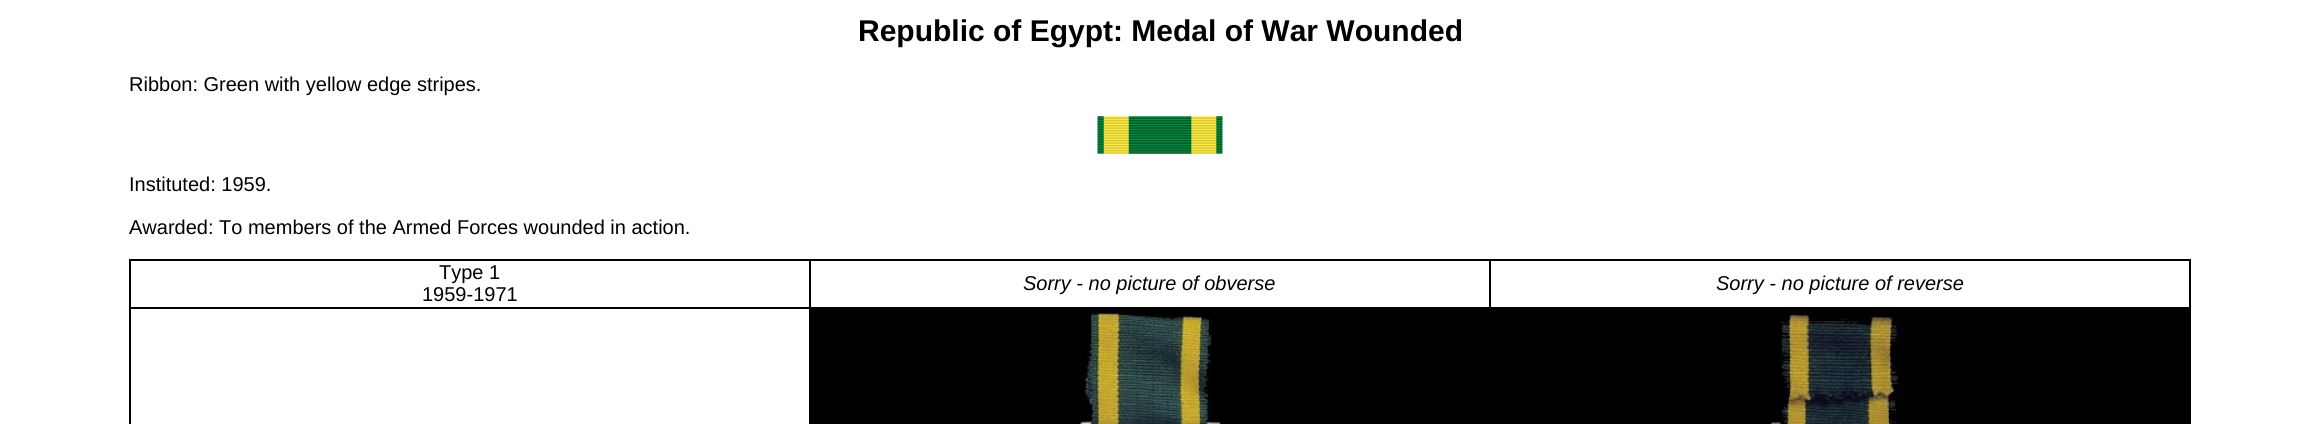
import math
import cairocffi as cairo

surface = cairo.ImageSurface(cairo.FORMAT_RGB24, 2319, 424)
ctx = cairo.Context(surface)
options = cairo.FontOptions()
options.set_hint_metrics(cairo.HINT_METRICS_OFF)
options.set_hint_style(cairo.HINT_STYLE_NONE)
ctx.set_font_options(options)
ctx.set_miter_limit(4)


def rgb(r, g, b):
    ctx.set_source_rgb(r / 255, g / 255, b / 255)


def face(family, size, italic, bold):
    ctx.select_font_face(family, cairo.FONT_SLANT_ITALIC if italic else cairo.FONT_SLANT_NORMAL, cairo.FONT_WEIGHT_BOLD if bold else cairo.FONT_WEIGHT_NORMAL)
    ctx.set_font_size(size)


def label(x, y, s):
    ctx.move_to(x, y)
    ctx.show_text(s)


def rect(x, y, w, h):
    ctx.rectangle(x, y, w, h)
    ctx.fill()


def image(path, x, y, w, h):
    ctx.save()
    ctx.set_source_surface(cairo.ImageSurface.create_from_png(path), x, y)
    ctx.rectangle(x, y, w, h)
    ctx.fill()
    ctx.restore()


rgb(255, 255, 255)
ctx.paint()
face('Liberation Sans', 30, 0, 1)
rgb(0, 0, 0)
label(858, 41, 'Republic of Egypt: Medal of War Wounded')
face('Liberation Sans', 20, 0, 0)
label(129, 91, 'Ribbon: Green with yellow edge stripes.')
image('image0.png', 1097, 116, 126, 38)
label(129, 191, 'Instituted: 1959.')
label(129, 234, 'Awarded: To members of the Armed Forces wounded in action.')
ctx.rectangle(129.5, 259.5, 2061, 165)
ctx.set_line_width(1)
ctx.stroke()
ctx.rectangle(130.5, 260.5, 679, 47)
ctx.stroke()
label(439, 279, 'Type 1')
label(422, 301, '1959-1971')
ctx.rectangle(810.5, 260.5, 679, 47)
ctx.stroke()
face('Liberation Sans', 20, 1, 0)
label(1023, 290, 'Sorry - no picture of obverse')
ctx.rectangle(1490.5, 260.5, 699, 47)
ctx.stroke()
label(1716, 290, 'Sorry - no picture of reverse')
ctx.rectangle(130.5, 308.5, 679, 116)
ctx.stroke()
rect(810, 308, 1380, 116)
image('image1.png', 1074, 308, 147, 116)
image('image2.png', 1764, 309, 142, 115)
surface.write_to_png('render.png')
